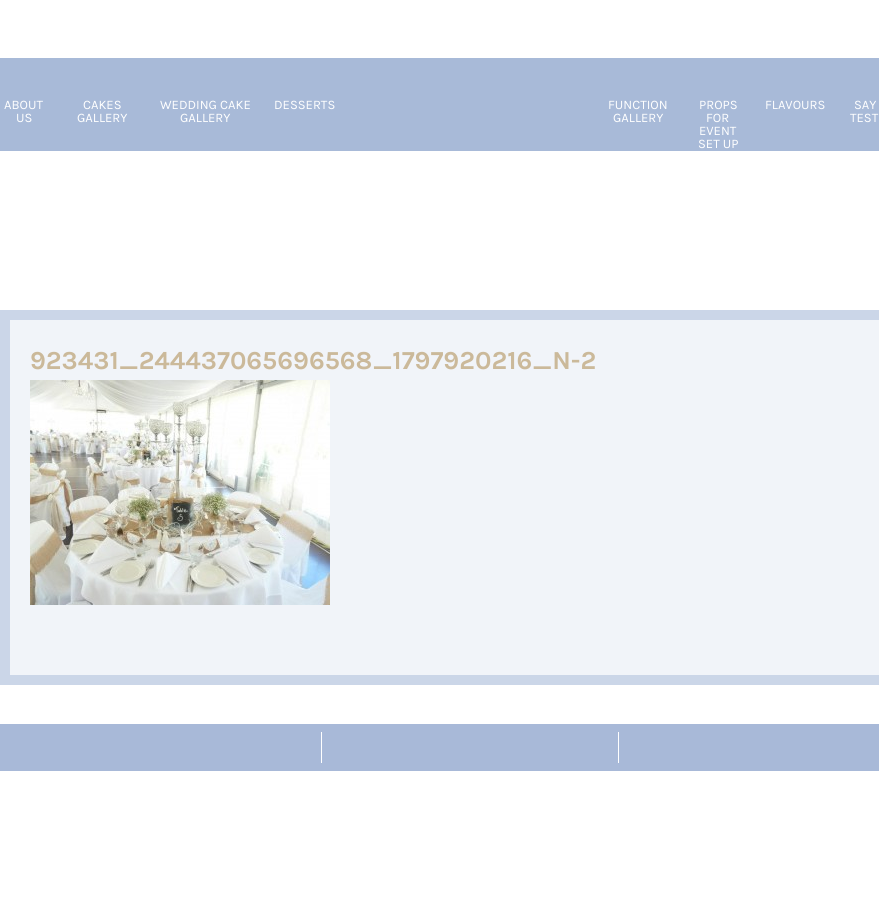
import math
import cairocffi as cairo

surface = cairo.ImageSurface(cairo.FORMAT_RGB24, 879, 924)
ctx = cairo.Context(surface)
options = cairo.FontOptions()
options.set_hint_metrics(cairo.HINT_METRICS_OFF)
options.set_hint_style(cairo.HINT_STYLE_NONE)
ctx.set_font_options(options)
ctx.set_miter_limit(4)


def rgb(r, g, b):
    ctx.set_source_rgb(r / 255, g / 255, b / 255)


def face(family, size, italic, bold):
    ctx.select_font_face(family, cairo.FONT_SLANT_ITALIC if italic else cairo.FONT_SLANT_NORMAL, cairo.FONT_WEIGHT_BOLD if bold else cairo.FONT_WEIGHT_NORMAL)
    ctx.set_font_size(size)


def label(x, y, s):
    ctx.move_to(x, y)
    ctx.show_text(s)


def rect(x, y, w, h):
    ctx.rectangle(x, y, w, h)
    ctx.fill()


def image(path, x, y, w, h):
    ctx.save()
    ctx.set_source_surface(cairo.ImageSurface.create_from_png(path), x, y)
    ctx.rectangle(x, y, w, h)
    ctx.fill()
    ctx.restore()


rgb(255, 255, 255)
ctx.paint()
rgb(168, 186, 216)
rect(0, 58, 879, 93)
face('Karla', 13, 0, 0)
rgb(255, 255, 255)
label(4, 109, 'ABOUT')
label(16, 122, 'US')
label(83, 109, 'CAKES')
label(77, 122, 'GALLERY')
label(160, 109, 'WEDDING CAKE')
label(180, 122, 'GALLERY')
label(274, 109, 'DESSERTS')
label(608, 109, 'FUNCTION')
label(613, 122, 'GALLERY')
label(699, 109, 'PROPS')
label(706, 122, 'FOR')
label(699, 135, 'EVENT')
label(698, 148, 'SET UP')
label(765, 109, 'FLAVOURS')
label(854, 109, 'SAY')
label(850, 122, 'TEST')
rgb(203, 214, 232)
rect(0, 310, 879, 375)
rgb(241, 244, 249)
rect(10, 320, 869, 355)
face('Karla', 26, 0, 1)
rgb(203, 185, 154)
label(30, 369, '923431_244437065696568_1797920216_N-2')
image('image0.png', 30, 380, 300, 225)
rgb(168, 185, 216)
rect(0, 724, 879, 47)
rgb(255, 255, 255)
rect(321, 732, 1, 31)
rect(618, 732, 1, 31)
surface.write_to_png('render.png')
